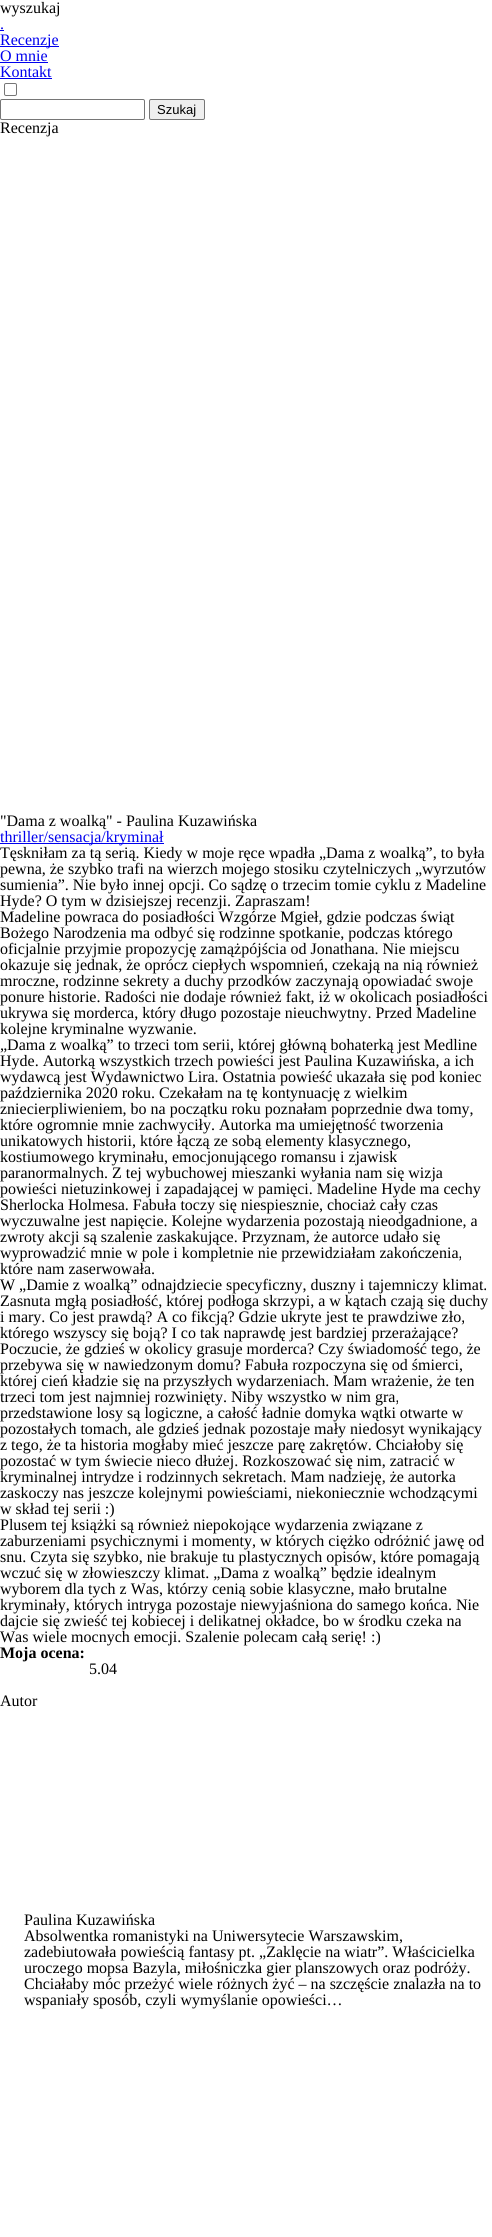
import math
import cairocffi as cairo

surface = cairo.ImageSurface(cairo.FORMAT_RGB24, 492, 2237)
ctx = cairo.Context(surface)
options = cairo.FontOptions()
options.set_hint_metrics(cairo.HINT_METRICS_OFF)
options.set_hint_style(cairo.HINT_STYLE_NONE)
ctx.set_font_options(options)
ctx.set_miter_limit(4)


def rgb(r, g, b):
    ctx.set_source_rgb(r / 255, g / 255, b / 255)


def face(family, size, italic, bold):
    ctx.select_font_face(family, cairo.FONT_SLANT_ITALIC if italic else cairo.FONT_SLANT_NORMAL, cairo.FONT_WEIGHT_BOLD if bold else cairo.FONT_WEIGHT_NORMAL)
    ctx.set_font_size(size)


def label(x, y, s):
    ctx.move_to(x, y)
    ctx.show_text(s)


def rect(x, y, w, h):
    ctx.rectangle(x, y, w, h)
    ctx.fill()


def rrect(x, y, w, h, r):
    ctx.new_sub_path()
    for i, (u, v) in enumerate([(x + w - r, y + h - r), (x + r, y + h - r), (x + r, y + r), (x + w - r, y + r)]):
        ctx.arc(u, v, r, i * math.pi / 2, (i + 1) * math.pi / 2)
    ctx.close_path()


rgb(255, 255, 255)
ctx.paint()
face('Liberation Serif', 16, 0, 0)
rgb(0, 0, 0)
label(0, 13, 'wyszukaj')
rgb(0, 0, 238)
label(0, 29, '.')
rect(0, 30, 4, 1)
rect(0, 46, 59, 1)
label(0, 45, 'Recenzje')
label(0, 61, 'O mnie')
rect(0, 62, 48, 1)
label(0, 77, 'Kontakt')
rect(0, 78, 52, 1)
rrect(4.5, 83.5, 12, 12, 1.5)
rgb(118, 118, 118)
ctx.set_line_width(1)
ctx.stroke()
rrect(0.5, 99.5, 144, 20, 1.5)
ctx.stroke()
rgb(239, 239, 239)
rrect(149.5, 99.5, 55, 20, 1.5)
ctx.fill_preserve()
rgb(118, 118, 118)
ctx.stroke()
face('Liberation Sans', 13, 0, 0)
rgb(0, 0, 0)
label(157, 114, 'Szukaj')
face('Liberation Serif', 16, 0, 0)
label(0, 133, 'Recenzja')
label(0, 826, '"Dama z woalką" - Paulina Kuzawińska')
rgb(0, 0, 238)
rect(0, 843, 164, 1)
label(0, 842, 'thriller/sensacja/kryminał')
rgb(0, 0, 0)
label(0, 858, 'Tęskniłam za tą serią. Kiedy w moje ręce wpadła „Dama z woalką”, to była')
label(0, 874, 'pewna, że szybko trafi na wierzch mojego stosiku czytelniczych „wyrzutów')
label(0, 890, 'sumienia”. Nie było innej opcji. Co sądzę o trzecim tomie cyklu z Madeline')
label(0, 906, 'Hyde? O tym w dzisiejszej recenzji. Zapraszam!')
label(0, 922, 'Madeline powraca do posiadłości Wzgórze Mgieł, gdzie podczas świąt')
label(0, 938, 'Bożego Narodzenia ma odbyć się rodzinne spotkanie, podczas którego')
label(0, 954, 'oficjalnie przyjmie propozycję zamążpójścia od Jonathana. Nie miejscu')
label(0, 970, 'okazuje się jednak, że oprócz ciepłych wspomnień, czekają na nią również')
label(0, 986, 'mroczne, rodzinne sekrety a duchy przodków zaczynają opowiadać swoje')
label(0, 1002, 'ponure historie. Radości nie dodaje również fakt, iż w okolicach posiadłości')
label(0, 1018, 'ukrywa się morderca, który długo pozostaje nieuchwytny. Przed Madeline')
label(0, 1034, 'kolejne kryminalne wyzwanie.')
label(0, 1050, '„Dama z woalką” to trzeci tom serii, której główną bohaterką jest Medline')
label(0, 1066, 'Hyde. Autorką wszystkich trzech powieści jest Paulina Kuzawińska, a ich')
label(0, 1082, 'wydawcą jest Wydawnictwo Lira. Ostatnia powieść ukazała się pod koniec')
label(0, 1098, 'października 2020 roku. Czekałam na tę kontynuację z wielkim')
label(0, 1114, 'zniecierpliwieniem, bo na początku roku poznałam poprzednie dwa tomy,')
label(0, 1130, 'które ogromnie mnie zachwyciły. Autorka ma umiejętność tworzenia')
label(0, 1146, 'unikatowych historii, które łączą ze sobą elementy klasycznego,')
label(0, 1162, 'kostiumowego kryminału, emocjonującego romansu i zjawisk')
label(0, 1178, 'paranormalnych. Z tej wybuchowej mieszanki wyłania nam się wizja')
label(0, 1194, 'powieści nietuzinkowej i zapadającej w pamięci. Madeline Hyde ma cechy')
label(0, 1210, 'Sherlocka Holmesa. Fabuła toczy się niespiesznie, chociaż cały czas')
label(0, 1226, 'wyczuwalne jest napięcie. Kolejne wydarzenia pozostają nieodgadnione, a')
label(0, 1242, 'zwroty akcji są szalenie zaskakujące. Przyznam, że autorce udało się')
label(0, 1258, 'wyprowadzić mnie w pole i kompletnie nie przewidziałam zakończenia,')
label(0, 1274, 'które nam zaserwowała.')
label(0, 1290, 'W „Damie z woalką” odnajdziecie specyficzny, duszny i tajemniczy klimat.')
label(0, 1306, 'Zasnuta mgłą posiadłość, której podłoga skrzypi, a w kątach czają się duchy')
label(0, 1322, 'i mary. Co jest prawdą? A co fikcją? Gdzie ukryte jest te prawdziwe zło,')
label(0, 1338, 'którego wszyscy się boją? I co tak naprawdę jest bardziej przerażające?')
label(0, 1354, 'Poczucie, że gdzieś w okolicy grasuje morderca? Czy świadomość tego, że')
label(0, 1370, 'przebywa się w nawiedzonym domu? Fabuła rozpoczyna się od śmierci,')
label(0, 1386, 'której cień kładzie się na przyszłych wydarzeniach. Mam wrażenie, że ten')
label(0, 1402, 'trzeci tom jest najmniej rozwinięty. Niby wszystko w nim gra,')
label(0, 1418, 'przedstawione losy są logiczne, a całość ładnie domyka wątki otwarte w')
label(0, 1434, 'pozostałych tomach, ale gdzieś jednak pozostaje mały niedosyt wynikający')
label(0, 1450, 'z tego, że ta historia mogłaby mieć jeszcze parę zakrętów. Chciałoby się')
label(0, 1466, 'pozostać w tym świecie nieco dłużej. Rozkoszować się nim, zatracić w')
label(0, 1482, 'kryminalnej intrydze i rodzinnych sekretach. Mam nadzieję, że autorka')
label(0, 1498, 'zaskoczy nas jeszcze kolejnymi powieściami, niekoniecznie wchodzącymi')
label(0, 1514, 'w skład tej serii :)')
label(0, 1530, 'Plusem tej książki są również niepokojące wydarzenia związane z')
label(0, 1546, 'zaburzeniami psychicznymi i momenty, w których ciężko odróżnić jawę od')
label(0, 1562, 'snu. Czyta się szybko, nie brakuje tu plastycznych opisów, które pomagają')
label(0, 1578, 'wczuć się w złowieszczy klimat. „Dama z woalką” będzie idealnym')
label(0, 1594, 'wyborem dla tych z Was, którzy cenią sobie klasyczne, mało brutalne')
label(0, 1610, 'kryminały, których intryga pozostaje niewyjaśniona do samego końca. Nie')
label(0, 1626, 'dajcie się zwieść tej kobiecej i delikatnej okładce, bo w środku czeka na')
label(0, 1642, 'Was wiele mocnych emocji. Szalenie polecam całą serię! :)')
face('Liberation Serif', 16, 0, 1)
label(0, 1658, 'Moja ocena:')
face('Liberation Serif', 16, 0, 0)
label(89, 1674, '5.04')
label(0, 1706, 'Autor')
label(24, 1925, 'Paulina Kuzawińska')
label(24, 1941, 'Absolwentka romanistyki na Uniwersytecie Warszawskim,')
label(24, 1957, 'zadebiutowała powieścią fantasy pt. „Zaklęcie na wiatr”. Właścicielka')
label(24, 1973, 'uroczego mopsa Bazyla, miłośniczka gier planszowych oraz podróży.')
label(24, 1989, 'Chciałaby móc przeżyć wiele różnych żyć – na szczęście znalazła na to')
label(24, 2005, 'wspaniały sposób, czyli wymyślanie opowieści…')
surface.write_to_png('render.png')
